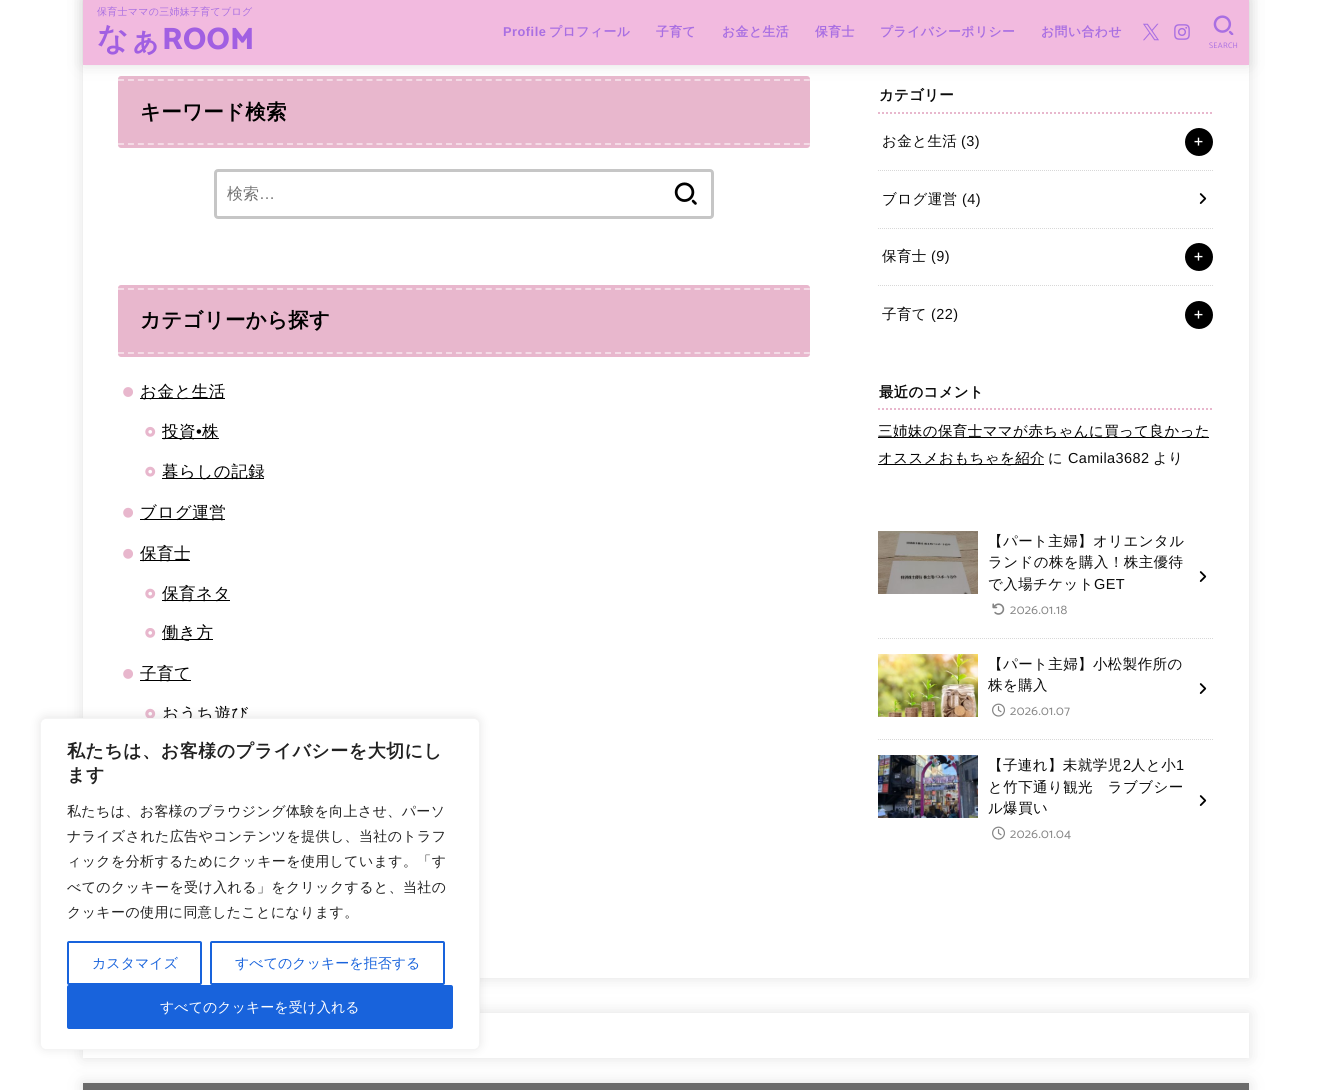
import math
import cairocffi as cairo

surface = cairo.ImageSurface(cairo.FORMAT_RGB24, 1331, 1090)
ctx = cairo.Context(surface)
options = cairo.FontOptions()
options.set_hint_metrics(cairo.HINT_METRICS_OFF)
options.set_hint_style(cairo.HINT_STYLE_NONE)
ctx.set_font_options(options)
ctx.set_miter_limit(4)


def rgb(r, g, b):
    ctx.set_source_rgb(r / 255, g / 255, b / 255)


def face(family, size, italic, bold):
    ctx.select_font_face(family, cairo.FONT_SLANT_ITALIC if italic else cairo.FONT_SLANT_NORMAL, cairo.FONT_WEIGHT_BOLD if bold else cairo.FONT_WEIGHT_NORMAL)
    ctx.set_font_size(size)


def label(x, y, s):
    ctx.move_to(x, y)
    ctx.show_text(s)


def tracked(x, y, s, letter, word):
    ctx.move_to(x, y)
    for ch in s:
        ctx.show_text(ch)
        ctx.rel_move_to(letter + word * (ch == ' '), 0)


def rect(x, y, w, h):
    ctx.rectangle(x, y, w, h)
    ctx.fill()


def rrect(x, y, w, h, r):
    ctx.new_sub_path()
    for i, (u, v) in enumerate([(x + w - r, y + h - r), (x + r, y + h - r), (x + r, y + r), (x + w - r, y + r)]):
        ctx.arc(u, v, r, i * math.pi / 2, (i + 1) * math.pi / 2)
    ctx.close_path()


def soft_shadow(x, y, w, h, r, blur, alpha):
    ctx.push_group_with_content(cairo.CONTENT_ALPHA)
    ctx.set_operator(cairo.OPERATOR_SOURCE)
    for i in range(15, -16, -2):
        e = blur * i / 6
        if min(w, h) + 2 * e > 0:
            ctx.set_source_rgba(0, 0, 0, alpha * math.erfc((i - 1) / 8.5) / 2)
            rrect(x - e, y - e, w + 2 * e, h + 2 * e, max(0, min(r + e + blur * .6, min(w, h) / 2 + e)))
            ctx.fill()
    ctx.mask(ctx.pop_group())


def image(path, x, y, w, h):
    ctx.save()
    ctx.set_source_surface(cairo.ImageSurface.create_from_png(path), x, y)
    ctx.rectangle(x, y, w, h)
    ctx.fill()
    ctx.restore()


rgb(255, 255, 255)
ctx.paint()
ctx.save()
ctx.set_fill_rule(cairo.FILL_RULE_EVEN_ODD)
ctx.new_path()
ctx.move_to(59, 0)
ctx.line_to(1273, 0)
ctx.line_to(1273, 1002)
ctx.line_to(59, 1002)
ctx.close_path()
ctx.move_to(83, -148)
ctx.line_to(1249, -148)
ctx.line_to(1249, 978)
ctx.line_to(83, 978)
ctx.close_path()
ctx.clip()
rgb(102, 102, 102)
soft_shadow(83, -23, 1166, 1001, 0, 7.5, 0.2)
ctx.restore()
rgb(232, 183, 205)
rrect(118, 76, 692, 72, 3)
ctx.fill()
ctx.new_path()
ctx.move_to(118, 80)
ctx.line_to(810, 80)
rgb(244, 219, 230)
ctx.set_dash([6, 3.94])
ctx.stroke()
rgb(102, 102, 102)
soft_shadow(83, 0, 1166, 65, 0, 7.5, 0.2)
rgb(242, 186, 223)
rect(83, 0, 1166, 65)
face('WenQuanYi Zen Hei Medium', 10, 0, 0)
rgb(169, 111, 226)
tracked(97, 15, '保育士ママの三姉妹子育てブログ', 0.25, 0)
face('WenQuanYi Zen Hei', 31, 0, 1)
rgb(161, 95, 226)
tracked(97, 49, 'なぁ', 0.25, 0)
face('Catamaran ExtraBold', 31, 0, 0)
tracked(162, 49, 'ROOM', 0.25, 0)
face('Liberation Sans', 12.8, 0, 1)
rgb(169, 111, 226)
tracked(503, 36, 'Profile', 0.5, 0)
face('WenQuanYi Zen Hei', 12.8, 0, 1)
tracked(549, 36, 'プロフィール', 0.5, 0)
tracked(656, 36, '子育て', 0.5, 0)
tracked(722, 36, 'お金と生活', 0.5, 0)
tracked(815, 36, '保育士', 0.5, 0)
tracked(880, 36, 'プライバシーポリシー', 0.5, 0)
tracked(1041, 36, 'お問い合わせ', 0.5, 0)
image('image0.png', 1143, 23, 16, 18)
image('image1.png', 1174, 24, 16, 16)
image('image2.png', 1213, 15, 21, 20)
face('Catamaran', 8, 0, 0)
tracked(1209, 48, 'SEARCH', 0.25, 0)
face('WenQuanYi Zen Hei', 20.5, 0, 1)
rgb(0, 0, 0)
tracked(140, 119, 'キーワード検索', 0.25, 0)
ctx.new_path()
ctx.move_to(118, 144)
ctx.line_to(810, 144)
rgb(244, 219, 230)
ctx.stroke()
rrect(215.5, 170.5, 497, 47, 2.5)
rgb(198, 198, 198)
ctx.set_line_width(3)
ctx.set_dash([])
ctx.stroke()
face('WenQuanYi Zen Hei Medium', 16, 0, 0)
rgb(117, 117, 117)
label(227, 199, '検索')
face('Liberation Sans', 16, 0, 0)
label(259, 199, '…')
image('image3.png', 674, 182, 23, 23)
rgb(232, 183, 205)
rrect(118, 285, 692, 72, 3)
ctx.fill()
ctx.new_path()
ctx.move_to(118, 289)
ctx.line_to(810, 289)
rgb(244, 219, 230)
ctx.set_line_width(2)
ctx.set_dash([6, 3.94])
ctx.stroke()
face('WenQuanYi Zen Hei', 20.5, 0, 1)
rgb(0, 0, 0)
tracked(140, 327, 'カテゴリーから探す', 0.25, 0)
ctx.new_path()
ctx.move_to(118, 353)
ctx.line_to(810, 353)
rgb(244, 219, 230)
ctx.stroke()
image('image4.png', 123, 387, 10, 10)
rgb(0, 0, 0)
rect(140, 398, 85, 1)
face('WenQuanYi Zen Hei Medium', 16.5, 0, 0)
tracked(140, 397, 'お金と生活', 0.5, 0)
image('image5.png', 145, 426, 11, 11)
rect(162, 438, 57, 1)
tracked(162, 437, '投資', 0.5, 0)
face('Liberation Sans', 16.5, 0, 0)
tracked(196, 437, '•', 0.5, 0)
face('WenQuanYi Zen Hei Medium', 16.5, 0, 0)
tracked(202, 437, '株', 0.5, 0)
image('image6.png', 145, 466, 11, 11)
rect(162, 478, 102, 1)
tracked(162, 477, '暮らしの記録', 0.5, 0)
image('image7.png', 123, 507, 10, 11)
rect(140, 519, 85, 1)
tracked(140, 518, 'ブログ運営', 0.5, 0)
image('image8.png', 123, 548, 10, 11)
rect(140, 560, 50, 1)
tracked(140, 559, '保育士', 0.5, 0)
image('image9.png', 145, 588, 11, 11)
rect(162, 600, 68, 1)
tracked(162, 599, '保育ネタ', 0.5, 0)
image('image10.png', 145, 628, 11, 10)
rect(162, 639, 51, 1)
tracked(162, 638, '働き方', 0.5, 0)
image('image11.png', 123, 669, 10, 10)
rect(140, 680, 51, 1)
tracked(140, 679, '子育て', 0.5, 0)
image('image12.png', 145, 708, 11, 10)
tracked(162, 719, 'おうち遊び', 0.5, 0)
ctx.new_path()
ctx.move_to(878, 113)
ctx.line_to(1214, 113)
rgb(232, 183, 205)
ctx.set_dash([2, 2])
ctx.stroke()
face('WenQuanYi Zen Hei', 14.5, 0, 1)
rgb(10, 10, 10)
tracked(879, 100, 'カテゴリー', 0.25, 0)
ctx.new_path()
ctx.move_to(878, 170.5)
ctx.line_to(1214, 170.5)
rgb(216, 216, 216)
ctx.set_line_width(1)
ctx.set_dash([1, 1])
ctx.stroke()
face('WenQuanYi Zen Hei Medium', 14.5, 0, 0)
rgb(10, 10, 10)
tracked(882, 146, 'お金と生活', 0.4, 0)
face('Liberation Sans', 14.5, 0, 0)
tracked(961, 146, '(3)', 0.4, 0)
rgb(0, 0, 0)
ctx.new_path()
ctx.arc(1199, 142, 14, 0, 2 * math.pi)
ctx.fill()
face('WenQuanYi Zen Hei', 14.5, 0, 1)
rgb(255, 255, 255)
tracked(1191, 146, '＋', 0.4, 0)
ctx.new_path()
ctx.move_to(878, 228.5)
ctx.line_to(1214, 228.5)
rgb(216, 216, 216)
ctx.stroke()
face('WenQuanYi Zen Hei Medium', 14.5, 0, 0)
rgb(10, 10, 10)
tracked(882, 204, 'ブログ運営', 0.4, 0)
face('Liberation Sans', 14.5, 0, 0)
tracked(962, 204, '(4)', 0.4, 0)
image('image13.png', 1199, 193, 8, 11)
ctx.new_path()
ctx.move_to(878, 285.5)
ctx.line_to(1214, 285.5)
rgb(216, 216, 216)
ctx.stroke()
face('WenQuanYi Zen Hei Medium', 14.5, 0, 0)
rgb(10, 10, 10)
tracked(882, 261, '保育士', 0.4, 0)
face('Liberation Sans', 14.5, 0, 0)
tracked(931, 261, '(9)', 0.4, 0)
rgb(0, 0, 0)
ctx.new_path()
ctx.arc(1199, 257, 14, 0, 2 * math.pi)
ctx.fill()
face('WenQuanYi Zen Hei', 14.5, 0, 1)
rgb(255, 255, 255)
tracked(1191, 261, '＋', 0.4, 0)
face('WenQuanYi Zen Hei Medium', 14.5, 0, 0)
rgb(10, 10, 10)
tracked(882, 319, '子育て', 0.4, 0)
face('Liberation Sans', 14.5, 0, 0)
tracked(931, 319, '(22)', 0.4, 0)
rgb(0, 0, 0)
ctx.new_path()
ctx.arc(1199, 315, 14, 0, 2 * math.pi)
ctx.fill()
face('WenQuanYi Zen Hei', 14.5, 0, 1)
rgb(255, 255, 255)
tracked(1191, 319, '＋', 0.4, 0)
ctx.new_path()
ctx.move_to(878, 409)
ctx.line_to(1214, 409)
rgb(232, 183, 205)
ctx.set_line_width(2)
ctx.set_dash([2, 2])
ctx.stroke()
rgb(10, 10, 10)
tracked(879, 397, '最近のコメント', 0.25, 0)
rgb(0, 0, 0)
rect(878, 437, 331, 1)
face('WenQuanYi Zen Hei Medium', 14.5, 0, 0)
tracked(878, 436, '三姉妹の保育士ママが赤ちゃんに買って良かった', 0.4, 0)
rect(878, 464, 166, 1)
tracked(878, 463, 'オススメおもちゃを紹介', 0.4, 0)
rgb(10, 10, 10)
tracked(1048, 463, 'に', 0.4, 0)
face('Liberation Sans', 14.5, 0, 0)
tracked(1068, 463, 'Camila3682', 0.4, 0)
face('WenQuanYi Zen Hei Medium', 14.5, 0, 0)
tracked(1153, 463, 'より', 0.4, 0)
ctx.new_path()
ctx.move_to(878, 638.5)
ctx.line_to(1214, 638.5)
rgb(216, 216, 216)
ctx.set_line_width(1)
ctx.set_dash([1, 1])
ctx.stroke()
image('image14.png', 878, 531, 100, 63)
rgb(10, 10, 10)
tracked(988, 546, '【パート主婦】オリエンタル', 0.4, 0)
tracked(988, 567, 'ランドの株を購入！株主優待', 0.4, 0)
tracked(988, 589, 'で入場チケット', 0.4, 0)
face('Liberation Sans', 14.5, 0, 0)
tracked(1094, 589, 'GET', 0.4, 0)
image('image15.png', 992, 603, 13, 12)
face('Catamaran', 13, 0, 0)
rgb(133, 133, 133)
tracked(1010, 614, '2026.01.18', 0.4, 0)
image('image13.png', 1199, 571, 8, 11)
ctx.new_path()
ctx.move_to(878, 739.5)
ctx.line_to(1214, 739.5)
rgb(216, 216, 216)
ctx.stroke()
image('image16.png', 878, 654, 100, 63)
face('WenQuanYi Zen Hei Medium', 14.5, 0, 0)
rgb(10, 10, 10)
tracked(988, 669, '【パート主婦】小松製作所の', 0.4, 0)
tracked(988, 690, '株を購入', 0.4, 0)
image('image17.png', 992, 703, 13, 14)
face('Catamaran', 13, 0, 0)
rgb(133, 133, 133)
tracked(1010, 715, '2026.01.07', 0.4, 0)
image('image13.png', 1199, 683, 8, 11)
image('image18.png', 878, 755, 100, 63)
face('WenQuanYi Zen Hei Medium', 14.5, 0, 0)
rgb(10, 10, 10)
tracked(988, 770, '【子連れ】未就学児', 0.4, 0)
face('Liberation Sans', 14.5, 0, 0)
tracked(1123, 770, '2', 0.4, 0)
face('WenQuanYi Zen Hei Medium', 14.5, 0, 0)
tracked(1131, 770, '人と小', 0.4, 0)
face('Liberation Sans', 14.5, 0, 0)
tracked(1176, 770, '1', 0.4, 0)
face('WenQuanYi Zen Hei Medium', 14.5, 0, 0)
tracked(988, 792, 'と竹下通り観光　ラブブシー', 0.4, 0)
tracked(988, 813, 'ル爆買い', 0.4, 0)
image('image17.png', 992, 826, 13, 14)
face('Catamaran', 13, 0, 0)
rgb(133, 133, 133)
tracked(1010, 838, '2026.01.04', 0.4, 0)
image('image13.png', 1199, 795, 8, 11)
ctx.save()
ctx.set_fill_rule(cairo.FILL_RULE_EVEN_ODD)
ctx.new_path()
ctx.move_to(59, 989)
ctx.line_to(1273, 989)
ctx.line_to(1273, 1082)
ctx.line_to(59, 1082)
ctx.close_path()
ctx.move_to(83, 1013)
ctx.line_to(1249, 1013)
ctx.line_to(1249, 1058)
ctx.line_to(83, 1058)
ctx.close_path()
ctx.clip()
rgb(102, 102, 102)
soft_shadow(83, 1013, 1166, 45, 0, 7.5, 0.2)
ctx.restore()
rgb(102, 102, 102)
soft_shadow(83, 1083, 1166, 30, 0, 7.5, 0.2)
rgb(107, 107, 107)
rect(83, 1083, 1166, 7)
rgb(172, 171, 171)
soft_shadow(40, 717, 440, 332, 6, 5, 0.3)
rgb(255, 255, 255)
rrect(40.5, 718.5, 439, 331, 5.5)
ctx.fill_preserve()
rgb(244, 244, 244)
ctx.set_dash([])
ctx.stroke()
face('WenQuanYi Zen Hei', 18, 0, 1)
rgb(33, 33, 33)
tracked(67, 757, '私たちは、お客様のプライバシーを大切にし', 0.5, 0)
tracked(67, 781, 'ます', 0.5, 0)
face('WenQuanYi Zen Hei Medium', 14, 0, 0)
tracked(67, 816, '私たちは、お客様のブラウジング体験を向上させ、パーソ', 0.35, 0)
tracked(67, 841, 'ナライズされた広告やコンテンツを提供し、当社のトラフ', 0.35, 0)
tracked(67, 866, 'ィックを分析するためにクッキーを使用しています。「す', 0.35, 0)
tracked(67, 892, 'べてのクッキーを受け入れる」をクリックすると、当社の', 0.35, 0)
tracked(67, 917, 'クッキーの使用に同意したことになります。', 0.35, 0)
rrect(68, 942, 133, 42, 1)
rgb(24, 99, 220)
ctx.set_line_width(2)
ctx.stroke()
label(92, 968, 'カスタマイズ')
rrect(211, 942, 233, 42, 1)
ctx.stroke()
label(235, 968, 'すべてのクッキーを拒否する')
rrect(68, 986, 384, 42, 1)
ctx.fill_preserve()
ctx.stroke()
rgb(255, 255, 255)
label(160, 1012, 'すべてのクッキーを受け入れる')
surface.write_to_png('render.png')
